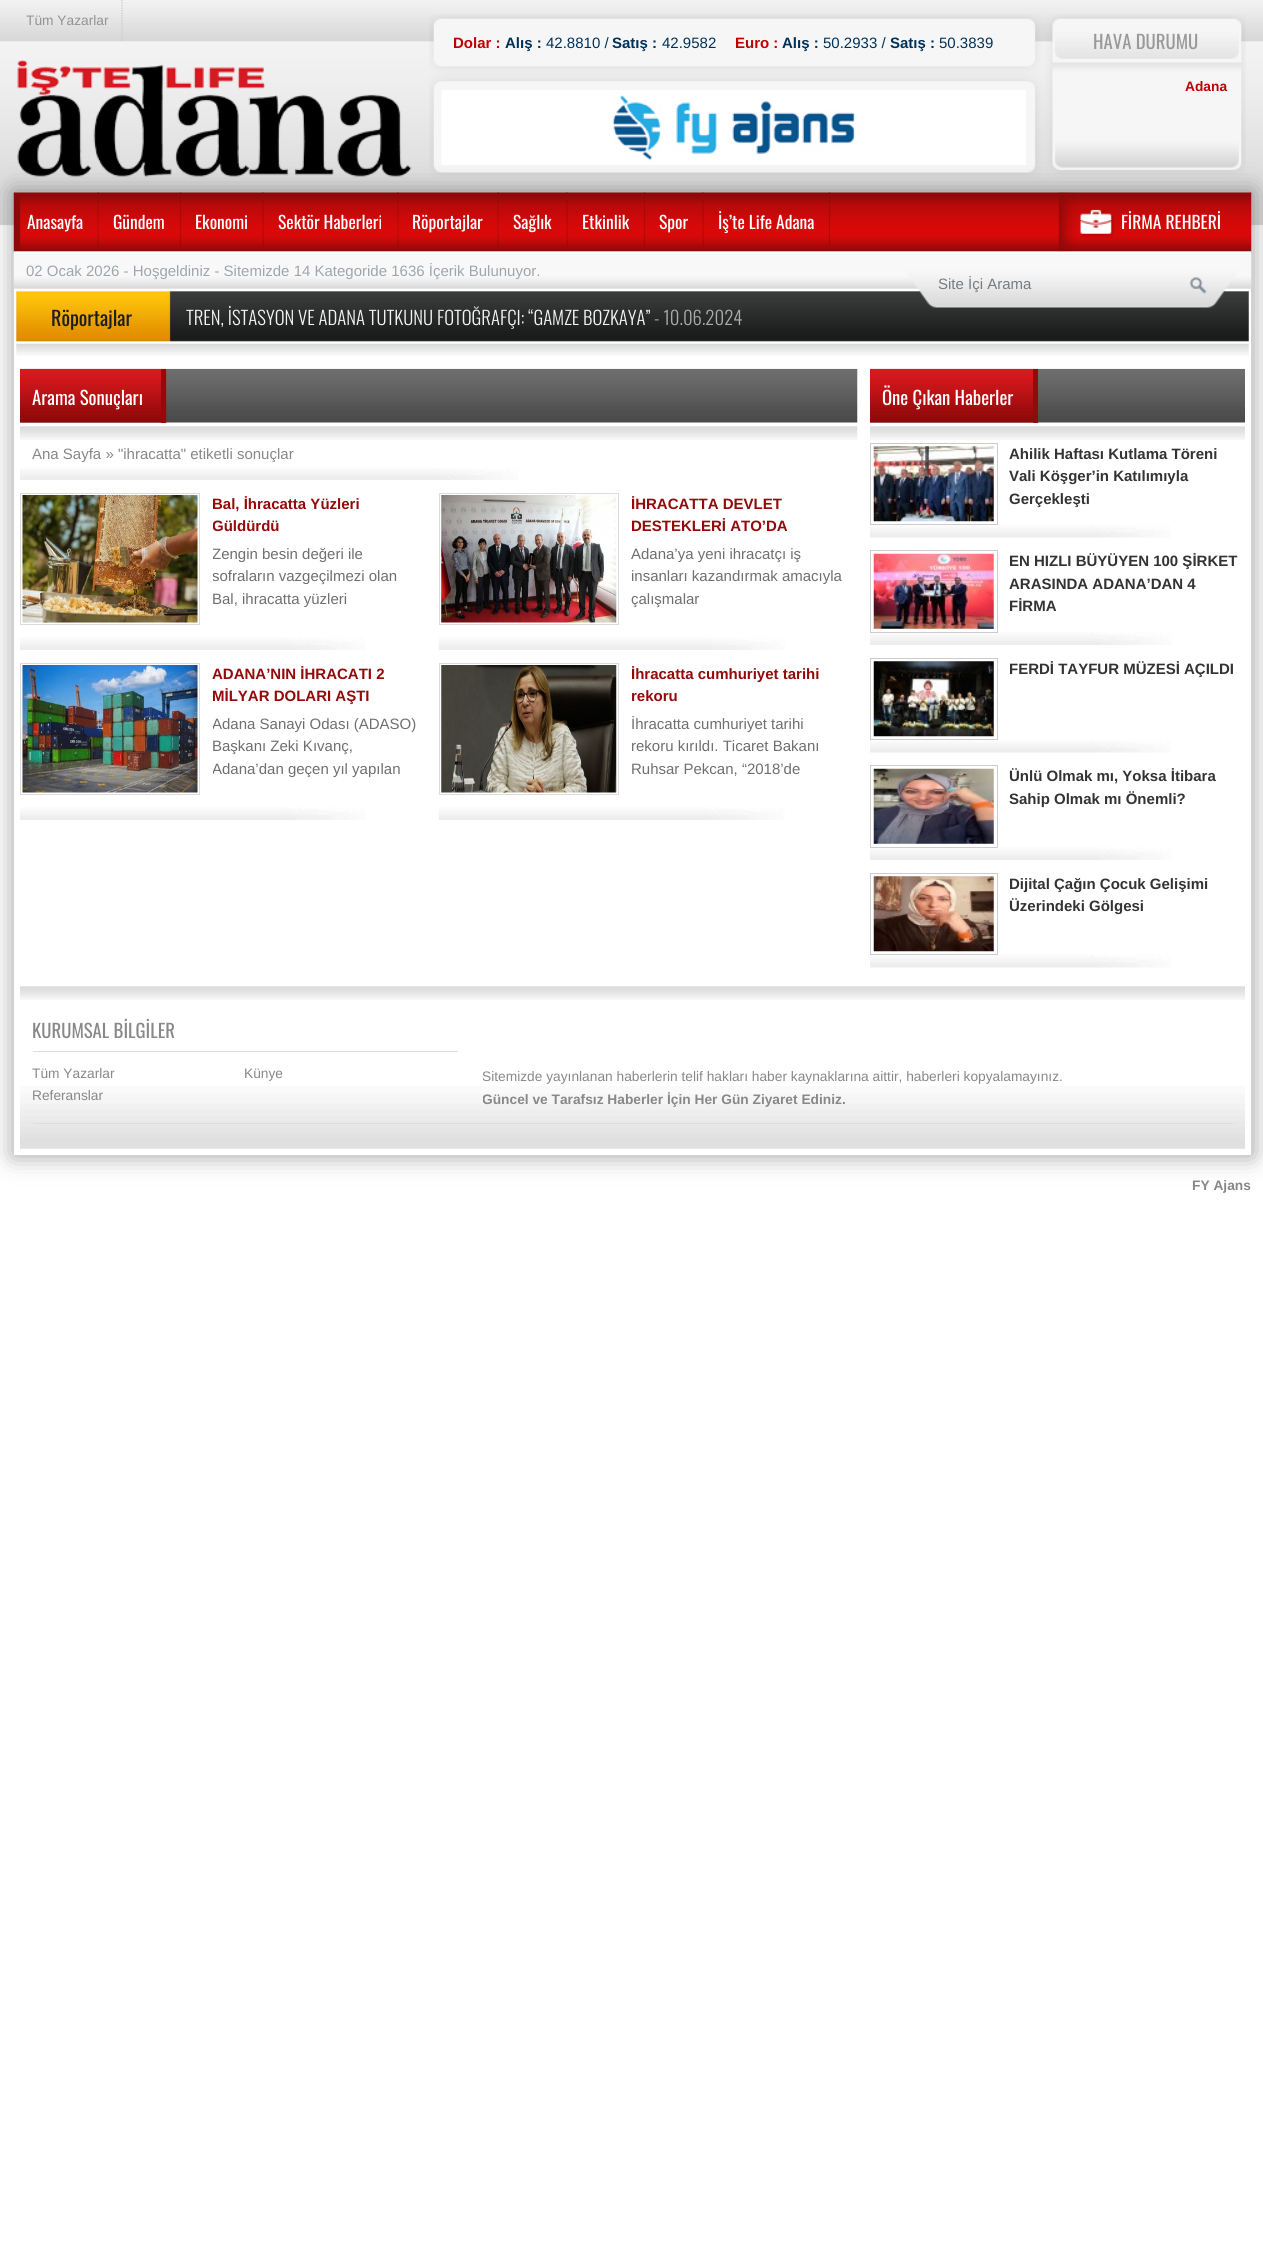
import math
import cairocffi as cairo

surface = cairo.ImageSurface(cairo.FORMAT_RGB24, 1263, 2264)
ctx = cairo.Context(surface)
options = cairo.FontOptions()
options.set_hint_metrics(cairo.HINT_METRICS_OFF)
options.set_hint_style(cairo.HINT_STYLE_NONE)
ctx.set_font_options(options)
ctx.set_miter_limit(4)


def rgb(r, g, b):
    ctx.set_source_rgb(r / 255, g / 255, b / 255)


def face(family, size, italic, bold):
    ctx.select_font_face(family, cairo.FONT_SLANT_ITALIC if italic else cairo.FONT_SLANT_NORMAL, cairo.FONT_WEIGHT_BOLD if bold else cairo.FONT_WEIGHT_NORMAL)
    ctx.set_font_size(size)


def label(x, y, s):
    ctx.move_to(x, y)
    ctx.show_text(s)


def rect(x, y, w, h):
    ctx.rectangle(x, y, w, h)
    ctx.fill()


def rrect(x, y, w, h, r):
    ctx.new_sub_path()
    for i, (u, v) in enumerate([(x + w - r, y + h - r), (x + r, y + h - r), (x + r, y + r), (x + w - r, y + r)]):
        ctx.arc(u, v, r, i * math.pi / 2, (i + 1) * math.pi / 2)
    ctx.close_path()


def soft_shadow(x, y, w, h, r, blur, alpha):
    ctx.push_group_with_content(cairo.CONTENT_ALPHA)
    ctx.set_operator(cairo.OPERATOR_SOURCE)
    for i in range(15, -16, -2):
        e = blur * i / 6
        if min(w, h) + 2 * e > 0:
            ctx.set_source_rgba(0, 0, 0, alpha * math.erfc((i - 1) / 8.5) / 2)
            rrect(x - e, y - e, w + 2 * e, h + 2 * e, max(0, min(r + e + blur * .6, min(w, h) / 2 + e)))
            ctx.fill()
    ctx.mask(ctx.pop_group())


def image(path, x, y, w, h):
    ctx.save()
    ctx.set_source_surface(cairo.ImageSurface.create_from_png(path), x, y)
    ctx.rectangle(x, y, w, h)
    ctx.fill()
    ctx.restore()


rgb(255, 255, 255)
ctx.paint()
image('image0.png', 0, 0, 1263, 226)
image('image1.png', 429, 14, 817, 164)
ctx.new_path()
ctx.move_to(122, 0)
ctx.line_to(122, 41)
rgb(198, 198, 198)
ctx.set_line_width(1.2)
ctx.set_dash([1.25, 1.25])
ctx.stroke()
face('Liberation Sans', 13.75, 0, 0)
rgb(147, 147, 147)
label(26, 25, 'Tüm Yazarlar')
image('image2.png', 17, 60, 395, 117)
face('Liberation Sans', 15, 0, 1)
rgb(190, 1, 1)
label(453, 48, 'Dolar :')
rgb(0, 50, 89)
label(505, 48, 'Alış :')
face('Liberation Sans', 15, 0, 0)
label(546, 48, '42.8810 /')
face('Liberation Sans', 15, 0, 1)
label(612, 48, 'Satış :')
face('Liberation Sans', 15, 0, 0)
label(662, 48, '42.9582')
face('Liberation Sans', 15, 0, 1)
rgb(190, 1, 1)
label(735, 48, 'Euro :')
rgb(0, 50, 89)
label(782, 48, 'Alış :')
face('Liberation Sans', 15, 0, 0)
label(823, 48, '50.2933 /')
face('Liberation Sans', 15, 0, 1)
label(890, 48, 'Satış :')
face('Liberation Sans', 15, 0, 0)
label(939, 48, '50.3839')
image('image3.png', 441, 90, 585, 75)
face('Oswald', 18.75, 0, 0)
rgb(153, 153, 153)
label(1093, 49, 'HAVA DURUMU')
face('Liberation Sans', 13.75, 0, 1)
rgb(190, 1, 1)
label(1185, 91, 'Adana')
rgb(50, 50, 50)
soft_shadow(13, 191, 1240, 965, 0, 12, 0.45)
rgb(255, 255, 255)
rect(14, 251, 1237, 904)
image('image4.png', 13, 192, 1239, 164)
ctx.new_path()
ctx.move_to(98, 192.5)
ctx.line_to(98, 251)
rgb(141, 9, 9)
ctx.stroke()
face('Oswald', 17.5, 0, 0)
rgb(255, 255, 255)
label(27, 229, 'Anasayfa')
ctx.new_path()
ctx.move_to(180.5, 192.5)
ctx.line_to(180.5, 251)
rgb(141, 9, 9)
ctx.stroke()
rgb(255, 255, 255)
label(113, 229, 'Gündem')
ctx.new_path()
ctx.move_to(263, 192.5)
ctx.line_to(263, 251)
rgb(141, 9, 9)
ctx.stroke()
rgb(255, 255, 255)
label(195, 229, 'Ekonomi')
ctx.new_path()
ctx.move_to(398, 192.5)
ctx.line_to(398, 251)
rgb(141, 9, 9)
ctx.stroke()
rgb(255, 255, 255)
label(278, 229, 'Sektör Haberleri')
ctx.new_path()
ctx.move_to(498, 192.5)
ctx.line_to(498, 251)
rgb(141, 9, 9)
ctx.stroke()
rgb(255, 255, 255)
label(412, 229, 'Röportajlar')
ctx.new_path()
ctx.move_to(567, 192.5)
ctx.line_to(567, 251)
rgb(141, 9, 9)
ctx.stroke()
rgb(255, 255, 255)
label(513, 229, 'Sağlık')
ctx.new_path()
ctx.move_to(644.5, 192.5)
ctx.line_to(644.5, 251)
rgb(141, 9, 9)
ctx.stroke()
rgb(255, 255, 255)
label(582, 229, 'Etkinlik')
ctx.new_path()
ctx.move_to(703, 192.5)
ctx.line_to(703, 251)
rgb(141, 9, 9)
ctx.stroke()
rgb(255, 255, 255)
label(659, 229, 'Spor')
ctx.new_path()
ctx.move_to(829.5, 192.5)
ctx.line_to(829.5, 251)
rgb(141, 9, 9)
ctx.stroke()
rgb(255, 255, 255)
label(718, 229, 'İş’te Life Adana')
image('image5.png', 1058, 192, 56, 60)
label(1121, 229, 'FİRMA REHBERİ')
face('Liberation Sans', 15, 0, 0)
rgb(157, 166, 175)
label(26, 276, '02 Ocak 2026 - Hoşgeldiniz - Sitemizde 14 Kategoride 1636 İçerik Bulunuyor.')
rgb(116, 124, 132)
label(938, 289, 'Site İçi Arama')
face('Oswald', 20, 0, 0)
rgb(28, 29, 29)
label(51, 326, 'Röportajlar')
face('Oswald Light', 18.75, 0, 0)
rgb(243, 243, 243)
label(186, 325, 'TREN, İSTASYON VE ADANA TUTKUNU FOTOĞRAFÇI: “GAMZE BOZKAYA”')
rgb(172, 171, 171)
label(654, 325, '- 10.06.2024')
image('image6.png', 20, 368, 838, 72)
image('image7.png', 20, 368, 147, 55)
rgb(146, 10, 10)
rect(161, 369, 5, 54)
face('Oswald', 18.75, 0, 0)
rgb(255, 255, 255)
label(32, 405, 'Arama Sonuçları')
image('image8.png', 20, 468, 499, 12)
face('Liberation Sans', 15, 0, 0)
rgb(136, 136, 136)
label(32, 459, 'Ana Sayfa » "ihracatta" etiketli sonuçlar')
image('image9.png', 20, 637, 346, 13)
ctx.rectangle(20.5, 493.5, 179, 131)
rgb(220, 220, 220)
ctx.set_line_width(1)
ctx.set_dash([])
ctx.stroke()
image('image10.png', 22, 495, 176, 128)
ctx.save()
ctx.rectangle(213, 493, 213, 43)
ctx.clip()
face('Liberation Sans', 15, 0, 1)
rgb(146, 10, 10)
label(212, 509, 'Bal, İhracatta Yüzleri')
label(212, 531, 'Güldürdü')
ctx.restore()
ctx.save()
ctx.rectangle(213, 493, 213, 116)
ctx.clip()
rgb(111, 111, 111)
label(212, 559, 'Zengin besin değeri ile')
label(212, 581, 'sofraların vazgeçilmezi olan')
ctx.restore()
rgb(111, 111, 111)
label(212, 604, 'Bal, ihracatta yüzleri')
image('image11.png', 438, 637, 347, 13)
ctx.rectangle(439.5, 493.5, 179, 131)
rgb(220, 220, 220)
ctx.stroke()
image('image12.png', 441, 495, 176, 128)
face('Liberation Sans', 15, 0, 1)
rgb(146, 10, 10)
label(631, 509, 'İHRACATTA DEVLET')
label(631, 531, 'DESTEKLERİ ATO’DA')
face('Liberation Sans', 15, 0, 0)
rgb(111, 111, 111)
label(631, 559, 'Adana’ya yeni ihracatçı iş')
label(631, 581, 'insanları kazandırmak amacıyla')
label(631, 604, 'çalışmalar')
image('image9.png', 20, 807, 346, 13)
ctx.rectangle(20.5, 663.5, 179, 131)
rgb(220, 220, 220)
ctx.stroke()
image('image13.png', 22, 665, 176, 128)
face('Liberation Sans', 15, 0, 1)
rgb(146, 10, 10)
label(212, 679, 'ADANA’NIN İHRACATI 2')
ctx.save()
ctx.rectangle(213, 663, 213, 43)
ctx.clip()
label(212, 701, 'MİLYAR DOLARI AŞTI')
ctx.restore()
ctx.save()
ctx.rectangle(213, 663, 213, 116)
ctx.clip()
face('Liberation Sans', 15, 0, 0)
rgb(111, 111, 111)
label(212, 729, 'Adana Sanayi Odası (ADASO)')
ctx.restore()
face('Liberation Sans', 15, 0, 0)
rgb(111, 111, 111)
label(212, 751, 'Başkanı Zeki Kıvanç,')
ctx.save()
ctx.rectangle(213, 663, 213, 116)
ctx.clip()
label(212, 774, 'Adana’dan geçen yıl yapılan')
ctx.restore()
image('image11.png', 438, 807, 347, 13)
ctx.rectangle(439.5, 663.5, 179, 131)
rgb(220, 220, 220)
ctx.stroke()
image('image14.png', 441, 665, 176, 128)
face('Liberation Sans', 15, 0, 1)
rgb(146, 10, 10)
label(631, 679, 'İhracatta cumhuriyet tarihi')
label(631, 701, 'rekoru')
face('Liberation Sans', 15, 0, 0)
rgb(111, 111, 111)
label(631, 729, 'İhracatta cumhuriyet tarihi')
label(631, 751, 'rekoru kırıldı. Ticaret Bakanı')
label(631, 774, 'Ruhsar Pekcan, “2018’de')
image('image15.png', 870, 368, 375, 72)
image('image16.png', 870, 368, 168, 55)
rgb(146, 10, 10)
rect(1033, 369, 5, 54)
face('Oswald', 18.75, 0, 0)
rgb(255, 255, 255)
label(882, 405, 'Öne Çıkan Haberler')
image('image17.png', 870, 524, 301, 14)
ctx.rectangle(870.5, 443.5, 127, 81)
rgb(204, 204, 204)
ctx.stroke()
image('image18.png', 873, 446, 121, 76)
face('Liberation Sans', 15, 0, 1)
rgb(51, 51, 51)
label(1009, 459, 'Ahilik Haftası Kutlama Töreni')
label(1009, 481, 'Vali Köşger’in Katılımıyla')
label(1009, 504, 'Gerçekleşti')
image('image19.png', 870, 632, 302, 13)
ctx.rectangle(870.5, 550.5, 127, 82)
rgb(204, 204, 204)
ctx.stroke()
image('image20.png', 873, 553, 121, 76)
rgb(51, 51, 51)
label(1009, 566, 'EN HIZLI BÜYÜYEN 100 ŞİRKET')
label(1009, 589, 'ARASINDA ADANA’DAN 4')
label(1009, 611, 'FİRMA')
image('image17.png', 870, 739, 301, 14)
ctx.rectangle(870.5, 658.5, 127, 81)
rgb(204, 204, 204)
ctx.stroke()
image('image21.png', 873, 661, 121, 76)
rgb(51, 51, 51)
label(1009, 674, 'FERDİ TAYFUR MÜZESİ AÇILDI')
image('image19.png', 870, 847, 302, 13)
ctx.rectangle(870.5, 765.5, 127, 82)
rgb(204, 204, 204)
ctx.stroke()
image('image22.png', 873, 768, 121, 76)
rgb(51, 51, 51)
label(1009, 781, 'Ünlü Olmak mı, Yoksa İtibara')
label(1009, 804, 'Sahip Olmak mı Önemli?')
image('image17.png', 870, 954, 301, 14)
ctx.rectangle(870.5, 873.5, 127, 81)
rgb(204, 204, 204)
ctx.stroke()
image('image23.png', 873, 876, 121, 76)
rgb(51, 51, 51)
label(1009, 889, 'Dijital Çağın Çocuk Gelişimi')
label(1009, 911, 'Üzerindeki Gölgesi')
image('image24.png', 20, 986, 1225, 14)
image('image25.png', 20, 1086, 1225, 63)
rgb(221, 221, 221)
rect(33, 1051, 425, 1)
face('Oswald', 18.75, 0, 0)
rgb(136, 136, 136)
label(32, 1038, 'KURUMSAL BİLGİLER')
face('Liberation Sans', 13.75, 0, 0)
label(32, 1078, 'Tüm Yazarlar')
label(244, 1078, 'Künye')
label(32, 1100, 'Referanslar')
label(482, 1081, 'Sitemizde yayınlanan haberlerin telif hakları haber kaynaklarına aittir, haberleri kopyalamayınız.')
ctx.save()
ctx.rectangle(483, 1088, 750, 22)
ctx.clip()
face('Liberation Sans', 13.75, 0, 1)
label(482, 1104, 'Güncel ve Tarafsız Haberler İçin Her Gün Ziyaret Ediniz.')
ctx.restore()
rgb(221, 221, 221)
rect(33, 1123, 1200, 1)
face('Liberation Sans', 13.75, 0, 1)
rgb(136, 136, 136)
label(1192, 1190, 'FY Ajans')
surface.write_to_png('render.png')
